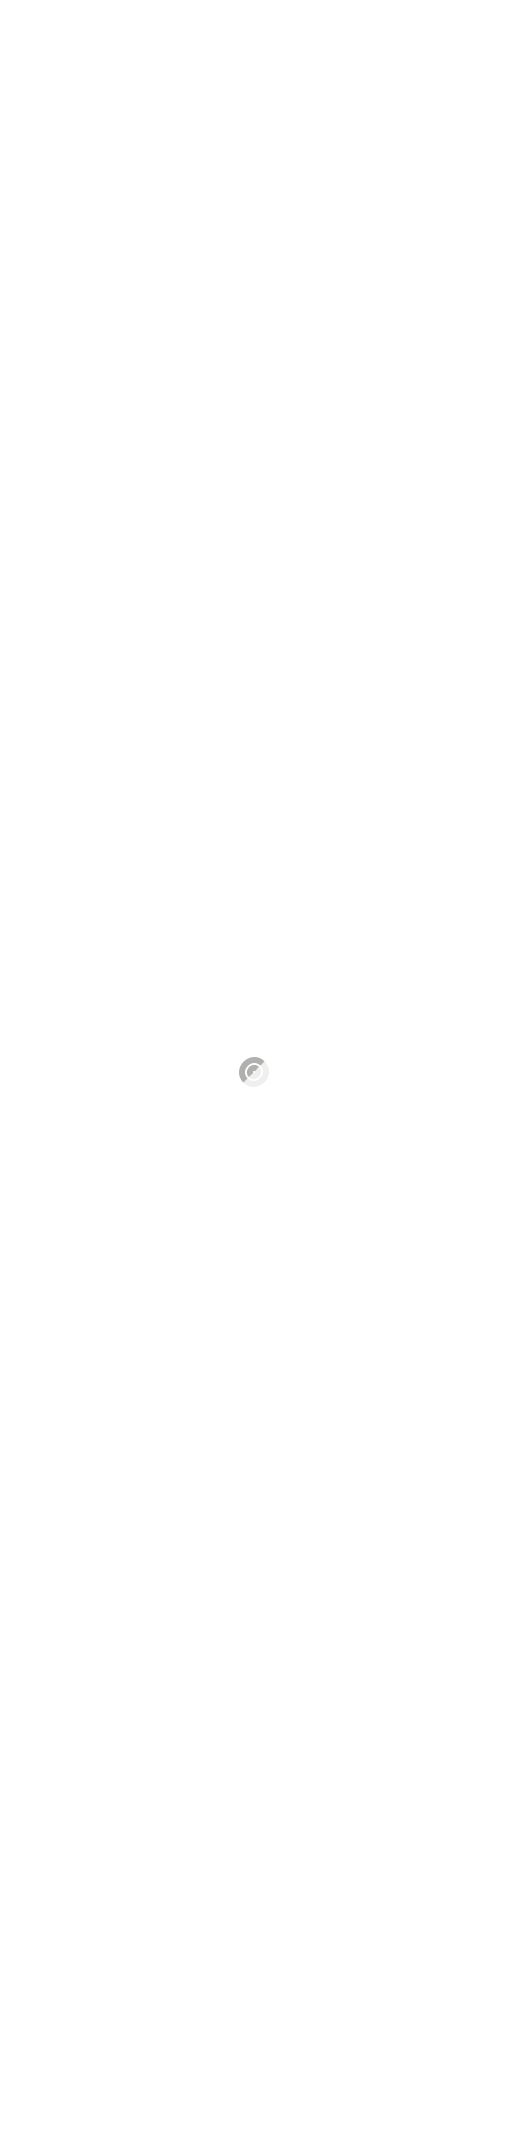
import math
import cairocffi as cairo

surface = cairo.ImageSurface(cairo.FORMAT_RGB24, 508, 2144)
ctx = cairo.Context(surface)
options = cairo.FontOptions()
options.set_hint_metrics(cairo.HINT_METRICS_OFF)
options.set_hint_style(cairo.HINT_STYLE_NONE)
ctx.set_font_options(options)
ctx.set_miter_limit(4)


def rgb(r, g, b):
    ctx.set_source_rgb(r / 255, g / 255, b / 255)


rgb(255, 255, 255)
ctx.paint()
ctx.new_path()
ctx.move_to(257, 1069)
ctx.curve_to(260.5, 1073, 255, 1078.5, 251, 1075)
rgb(239, 239, 239)
ctx.set_line_width(6)
ctx.stroke()
ctx.new_path()
ctx.move_to(251, 1075)
ctx.curve_to(247.5, 1071, 253, 1065.5, 257, 1069)
rgb(176, 176, 175)
ctx.stroke()
ctx.new_path()
ctx.move_to(262.5, 1063.5)
ctx.curve_to(273.5, 1074.5, 256.5, 1091.5, 245.5, 1080.5)
rgb(239, 239, 239)
ctx.stroke()
ctx.new_path()
ctx.move_to(245.5, 1080.5)
ctx.curve_to(234.5, 1069.5, 251.5, 1052.5, 262.5, 1063.5)
rgb(176, 176, 175)
ctx.stroke()
surface.write_to_png('render.png')
